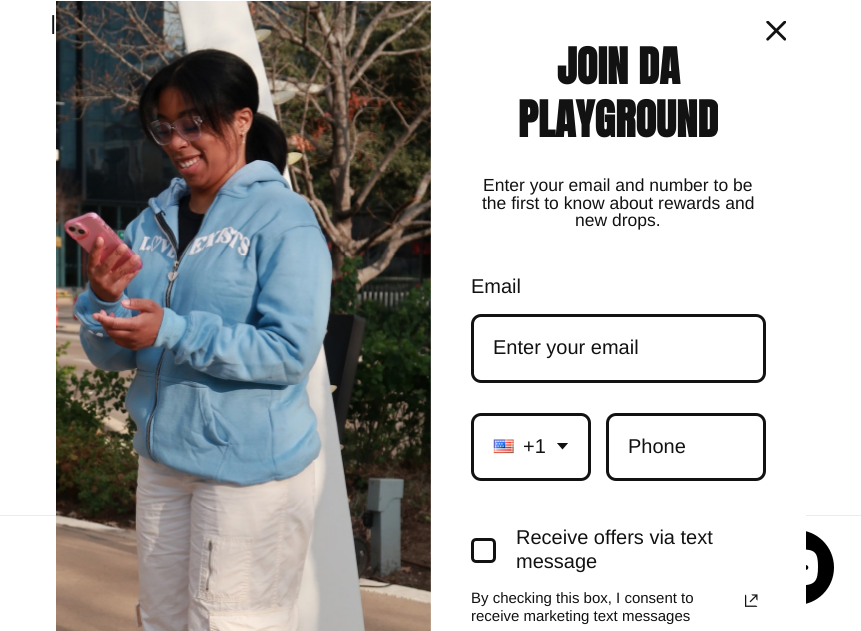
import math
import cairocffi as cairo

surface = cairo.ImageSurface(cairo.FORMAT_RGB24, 861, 631)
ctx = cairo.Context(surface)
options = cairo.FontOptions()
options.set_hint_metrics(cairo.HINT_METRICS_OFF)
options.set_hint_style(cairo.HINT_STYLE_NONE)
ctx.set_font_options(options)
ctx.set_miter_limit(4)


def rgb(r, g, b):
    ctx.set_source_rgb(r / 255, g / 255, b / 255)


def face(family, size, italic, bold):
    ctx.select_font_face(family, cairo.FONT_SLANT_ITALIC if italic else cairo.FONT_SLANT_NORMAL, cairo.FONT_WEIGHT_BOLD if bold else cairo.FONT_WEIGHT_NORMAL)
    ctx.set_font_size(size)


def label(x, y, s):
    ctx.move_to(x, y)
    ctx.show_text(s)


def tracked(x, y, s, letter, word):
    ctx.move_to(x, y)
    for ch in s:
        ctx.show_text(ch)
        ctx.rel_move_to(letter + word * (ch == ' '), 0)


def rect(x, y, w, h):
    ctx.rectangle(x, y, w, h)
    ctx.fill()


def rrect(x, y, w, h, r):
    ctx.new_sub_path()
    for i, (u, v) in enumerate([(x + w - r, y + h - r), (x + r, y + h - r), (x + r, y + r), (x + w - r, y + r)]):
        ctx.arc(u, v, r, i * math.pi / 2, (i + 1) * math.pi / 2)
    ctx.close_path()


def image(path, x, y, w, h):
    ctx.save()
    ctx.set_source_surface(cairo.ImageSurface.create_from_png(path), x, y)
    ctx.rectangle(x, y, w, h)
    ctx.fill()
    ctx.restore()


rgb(255, 255, 255)
ctx.paint()
face('Barlow Semi Condensed', 27, 0, 0)
rgb(18, 18, 18)
tracked(50, 34, 'I', 1, 0)
ctx.rectangle(274.5, 236.5, 313, 62)
rgb(125, 125, 125)
ctx.set_line_width(1)
ctx.stroke()
rgb(236, 236, 236)
rect(0, 515, 861, 1)
image('image0.png', 430, 549, 1, 30)
image('image1.png', 766, 21, 20, 20)
image('image2.png', 56, 1, 375, 630)
face('Anton', 42.5, 0, 1)
rgb(18, 18, 18)
label(557, 84, 'JOIN DA')
label(518, 137, 'PLAYGROUND')
face('Liberation Sans', 17.5, 0, 0)
label(483, 191, 'Enter your email and number to be')
label(482, 209, 'the first to know about rewards and')
label(575, 226, 'new drops.')
rgb(0, 0, 0)
ctx.new_path()
ctx.arc(796.5, 567.5, 37.5, 0, 2 * math.pi)
ctx.fill()
rgb(255, 255, 255)
rect(431, 236, 375, 369)
face('Liberation Sans', 20, 0, 0)
rgb(18, 18, 18)
label(471, 293, 'Email')
rrect(472.5, 315.5, 292, 66, 8.5)
ctx.set_line_width(3)
ctx.stroke()
label(493, 354, 'Enter your email')
rrect(472.5, 414.5, 117, 65, 8.5)
ctx.stroke()
image('image3.png', 493, 439, 21, 15)
label(523, 453, '+1')
ctx.save()
ctx.rectangle(556, 443, 13, 7)
ctx.clip()
ctx.set_fill_rule(cairo.FILL_RULE_EVEN_ODD)
ctx.new_path()
ctx.move_to(556, 442)
ctx.line_to(569, 442)
ctx.line_to(562.5, 449.5)
ctx.close_path()
ctx.fill()
ctx.restore()
rrect(607.5, 414.5, 157, 65, 8.5)
ctx.stroke()
label(628, 453, 'Phone')
rrect(472.5, 539.5, 22, 22, 3.5)
ctx.stroke()
label(516, 544, 'Receive offers via text')
label(516, 568, 'message')
face('Liberation Sans', 15, 0, 0)
label(471, 603, 'By checking this box, I consent to')
label(471, 621, 'receive marketing text messages')
image('image4.png', 745, 594, 13, 13)
image('image5.png', 806, 549, 12, 36)
surface.write_to_png('render.png')
